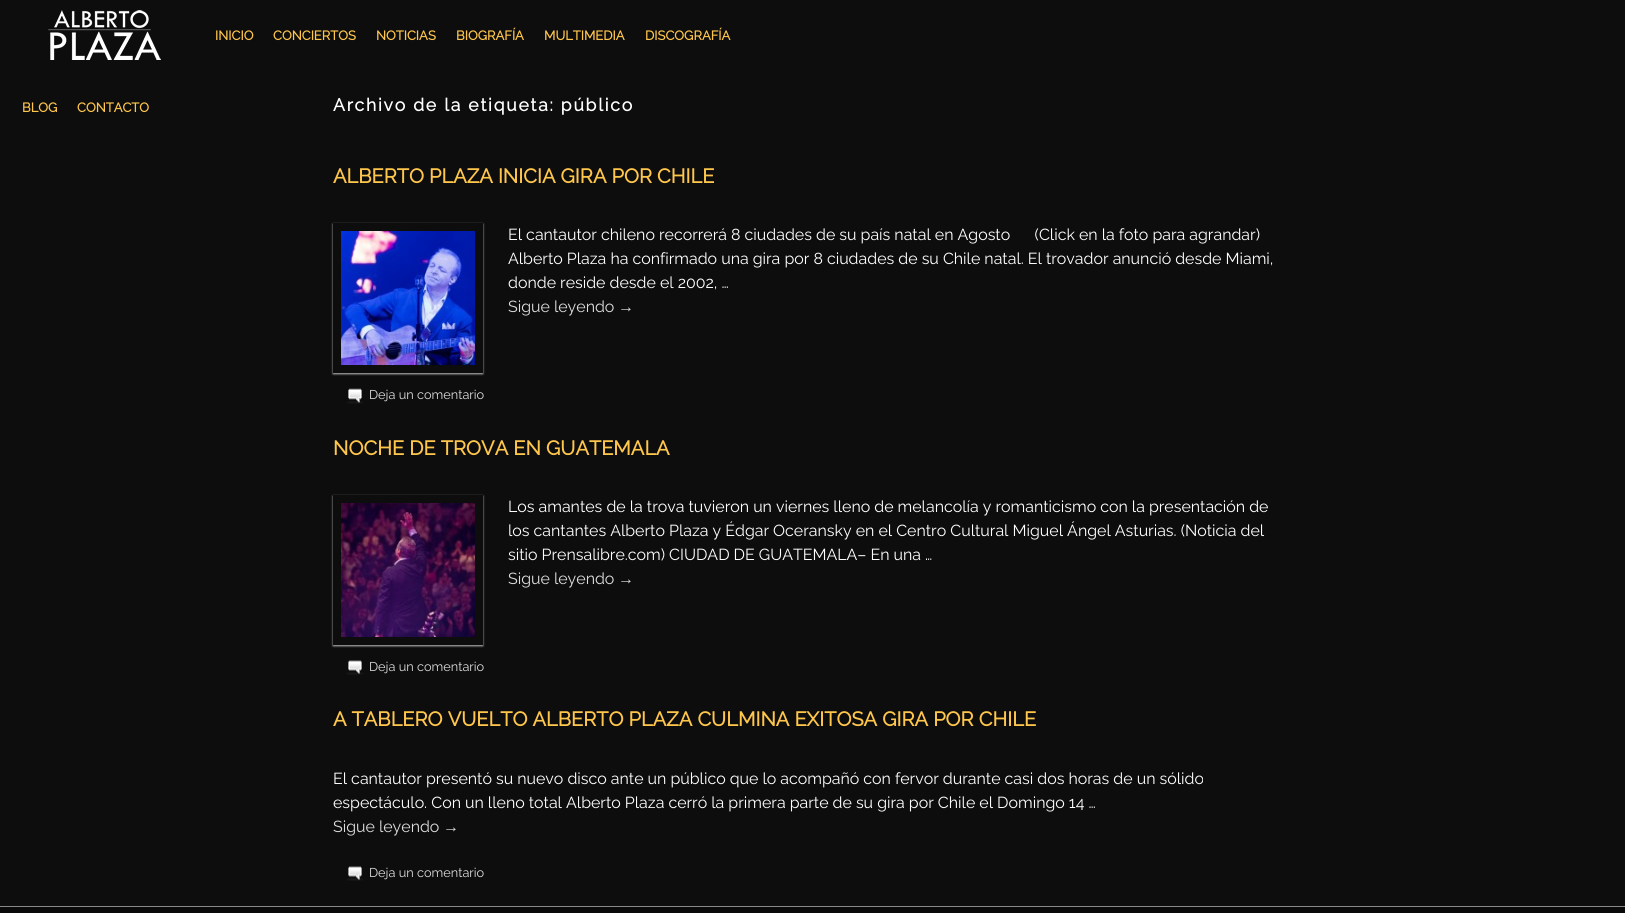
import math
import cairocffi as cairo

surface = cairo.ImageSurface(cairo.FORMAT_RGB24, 1625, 913)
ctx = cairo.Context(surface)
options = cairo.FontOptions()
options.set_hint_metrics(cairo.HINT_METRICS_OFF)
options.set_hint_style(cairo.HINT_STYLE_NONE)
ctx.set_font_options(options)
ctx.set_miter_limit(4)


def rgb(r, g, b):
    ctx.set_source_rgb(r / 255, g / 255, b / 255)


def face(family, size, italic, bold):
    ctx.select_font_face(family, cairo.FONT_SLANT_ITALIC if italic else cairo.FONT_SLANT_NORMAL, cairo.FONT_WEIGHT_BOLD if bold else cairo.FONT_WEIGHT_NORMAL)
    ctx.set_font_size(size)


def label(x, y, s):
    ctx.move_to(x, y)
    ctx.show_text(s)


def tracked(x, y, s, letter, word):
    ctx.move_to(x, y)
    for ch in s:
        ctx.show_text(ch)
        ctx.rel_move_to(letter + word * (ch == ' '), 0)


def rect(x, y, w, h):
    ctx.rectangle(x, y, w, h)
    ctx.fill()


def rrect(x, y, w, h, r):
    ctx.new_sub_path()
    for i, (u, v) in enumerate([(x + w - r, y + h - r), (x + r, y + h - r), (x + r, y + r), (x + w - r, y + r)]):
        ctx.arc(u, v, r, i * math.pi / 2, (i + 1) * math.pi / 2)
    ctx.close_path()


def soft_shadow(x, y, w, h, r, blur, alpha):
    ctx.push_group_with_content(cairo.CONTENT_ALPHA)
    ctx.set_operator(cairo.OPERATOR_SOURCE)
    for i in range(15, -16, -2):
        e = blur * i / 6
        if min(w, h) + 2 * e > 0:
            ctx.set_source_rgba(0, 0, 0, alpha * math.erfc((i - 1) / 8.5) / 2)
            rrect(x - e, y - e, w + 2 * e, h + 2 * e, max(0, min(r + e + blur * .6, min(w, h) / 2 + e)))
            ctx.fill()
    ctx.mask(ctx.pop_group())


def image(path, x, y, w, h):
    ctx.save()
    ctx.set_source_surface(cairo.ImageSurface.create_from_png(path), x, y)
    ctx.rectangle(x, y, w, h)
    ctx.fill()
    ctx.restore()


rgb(13, 13, 13)
ctx.paint()
image('image0.png', 48, 10, 113, 50)
face('Raleway', 13, 0, 1)
rgb(255, 198, 76)
label(215, 40, 'INICIO')
label(273, 40, 'CONCIERTOS')
label(376, 40, 'NOTICIAS')
label(456, 40, 'BIOGRAFÍA')
label(544, 40, 'MULTIMEDIA')
label(645, 40, 'DISCOGRAFÍA')
label(22, 112, 'BLOG')
label(77, 112, 'CONTACTO')
face('Raleway', 17.6, 0, 1)
rgb(255, 255, 255)
tracked(333, 111, 'Archivo de la etiqueta: público', 1.75, 0)
face('Raleway', 20, 0, 1)
rgb(255, 198, 76)
label(333, 183, 'ALBERTO PLAZA INICIA GIRA POR CHILE')
ctx.save()
ctx.set_fill_rule(cairo.FILL_RULE_EVEN_ODD)
ctx.new_path()
ctx.move_to(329, 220)
ctx.line_to(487, 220)
ctx.line_to(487, 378)
ctx.line_to(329, 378)
ctx.close_path()
ctx.move_to(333, 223)
ctx.line_to(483, 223)
ctx.line_to(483, 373)
ctx.line_to(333, 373)
ctx.close_path()
ctx.clip()
rgb(187, 187, 187)
soft_shadow(333, 224, 150, 150, 0, 1, 1)
ctx.restore()
image('image1.png', 341, 231, 134, 134)
face('Raleway Thin', 15.95, 0, 0)
rgb(255, 255, 255)
label(508, 240, 'El cantautor chileno recorrerá 8 ciudades de su país natal en Agosto      (Click en la foto para agrandar)')
label(508, 264, 'Alberto Plaza ha confirmado una gira por 8 ciudades de su Chile natal. El trovador anunció desde Miami,')
label(508, 288, 'donde reside desde el 2002, …')
rgb(221, 221, 221)
label(508, 312, 'Sigue leyendo')
face('Liberation Sans', 15.95, 0, 0)
label(618, 312, '→')
image('image2.png', 347, 388, 16, 16)
face('Raleway Thin', 12.75, 0, 0)
label(369, 399, 'Deja un comentario')
face('Raleway', 20, 0, 1)
rgb(255, 198, 76)
label(333, 455, 'NOCHE DE TROVA EN GUATEMALA')
ctx.save()
ctx.set_fill_rule(cairo.FILL_RULE_EVEN_ODD)
ctx.new_path()
ctx.move_to(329, 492)
ctx.line_to(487, 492)
ctx.line_to(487, 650)
ctx.line_to(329, 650)
ctx.close_path()
ctx.move_to(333, 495)
ctx.line_to(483, 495)
ctx.line_to(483, 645)
ctx.line_to(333, 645)
ctx.close_path()
ctx.clip()
rgb(187, 187, 187)
soft_shadow(333, 496, 150, 150, 0, 1, 1)
ctx.restore()
image('image3.png', 341, 503, 134, 134)
face('Raleway Thin', 15.95, 0, 0)
rgb(255, 255, 255)
label(508, 512, 'Los amantes de la trova tuvieron un viernes lleno de melancolía y romanticismo con la presentación de')
label(508, 536, 'los cantantes Alberto Plaza y Édgar Oceransky en el Centro Cultural Miguel Ángel Asturias. (Noticia del')
label(508, 560, 'sitio Prensalibre.com) CIUDAD DE GUATEMALA– En una …')
rgb(221, 221, 221)
label(508, 584, 'Sigue leyendo')
face('Liberation Sans', 15.95, 0, 0)
label(618, 584, '→')
image('image4.png', 347, 660, 16, 15)
face('Raleway Thin', 12.75, 0, 0)
label(369, 671, 'Deja un comentario')
face('Raleway', 20, 0, 1)
rgb(255, 198, 76)
label(333, 726, 'A TABLERO VUELTO ALBERTO PLAZA CULMINA EXITOSA GIRA POR CHILE')
face('Raleway Thin', 15.95, 0, 0)
rgb(255, 255, 255)
label(333, 784, 'El cantautor presentó su nuevo disco ante un público que lo acompañó con fervor durante casi dos horas de un sólido')
label(333, 808, 'espectáculo. Con un lleno total Alberto Plaza cerró la primera parte de su gira por Chile el Domingo 14 …')
rgb(221, 221, 221)
label(333, 832, 'Sigue leyendo')
face('Liberation Sans', 15.95, 0, 0)
label(443, 832, '→')
image('image4.png', 347, 866, 16, 15)
face('Raleway Thin', 12.75, 0, 0)
label(369, 877, 'Deja un comentario')
rgb(9, 9, 9)
rect(0, 907, 1625, 6)
rgb(136, 136, 136)
rect(0, 906, 1625, 1)
surface.write_to_png('render.png')
